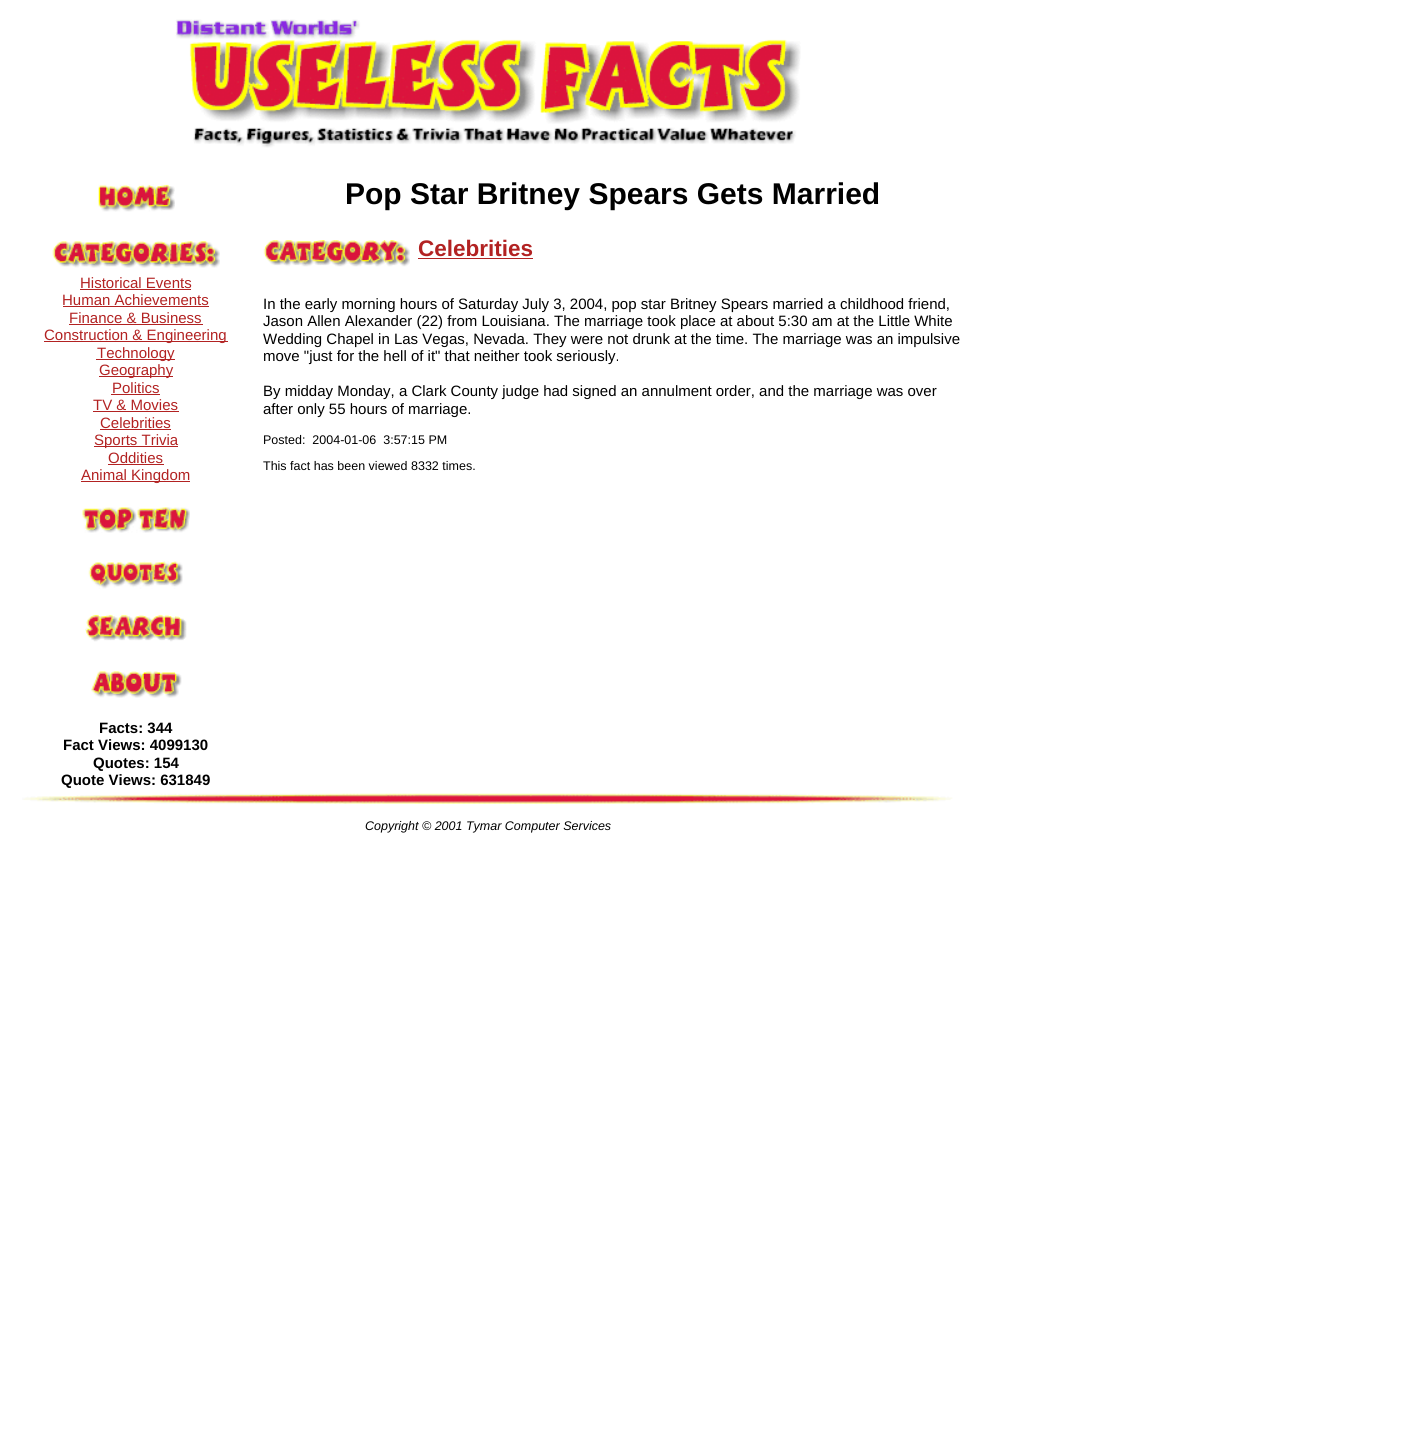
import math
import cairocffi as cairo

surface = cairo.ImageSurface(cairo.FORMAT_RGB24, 1407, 1439)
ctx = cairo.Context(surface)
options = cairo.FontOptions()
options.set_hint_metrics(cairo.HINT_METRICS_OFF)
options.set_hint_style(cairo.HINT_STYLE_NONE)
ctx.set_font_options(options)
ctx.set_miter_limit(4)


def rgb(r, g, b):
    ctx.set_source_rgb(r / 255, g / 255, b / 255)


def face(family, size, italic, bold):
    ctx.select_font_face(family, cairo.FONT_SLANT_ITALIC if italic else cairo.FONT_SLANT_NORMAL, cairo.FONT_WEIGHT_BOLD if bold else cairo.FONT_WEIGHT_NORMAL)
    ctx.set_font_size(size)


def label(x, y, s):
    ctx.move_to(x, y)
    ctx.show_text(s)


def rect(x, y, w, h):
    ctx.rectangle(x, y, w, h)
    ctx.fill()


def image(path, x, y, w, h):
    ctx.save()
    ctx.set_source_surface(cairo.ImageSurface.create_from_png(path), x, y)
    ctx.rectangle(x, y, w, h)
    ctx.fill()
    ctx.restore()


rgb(255, 255, 255)
ctx.paint()
image('image0.png', 175, 19, 626, 129)
image('image1.png', 98, 184, 77, 28)
image('image2.png', 52, 241, 168, 27)
face('Liberation Sans', 15, 0, 0)
rgb(178, 34, 34)
label(80, 288, 'Historical Events')
rect(80, 289, 111, 1)
label(62, 305, 'Human Achievements')
rect(63, 306, 146, 1)
label(69, 323, 'Finance & Business')
rect(69, 324, 134, 1)
rect(44, 341, 184, 1)
label(44, 340, 'Construction & Engineering')
rect(96, 359, 79, 1)
label(97, 358, 'Technology')
rect(99, 376, 74, 1)
label(99, 375, 'Geography')
label(112, 393, 'Politics')
rect(111, 394, 49, 1)
label(93, 410, 'TV & Movies')
rect(93, 411, 86, 1)
label(100, 428, 'Celebrities')
rect(100, 429, 71, 1)
rect(94, 446, 84, 1)
label(94, 445, 'Sports Trivia')
label(108, 463, 'Oddities')
rect(108, 464, 56, 1)
rect(81, 481, 109, 1)
label(81, 480, 'Animal Kingdom')
image('image3.png', 82, 507, 108, 26)
image('image4.png', 88, 561, 95, 28)
image('image5.png', 85, 614, 102, 28)
image('image6.png', 91, 671, 91, 27)
face('Liberation Sans', 15, 0, 1)
rgb(0, 0, 0)
label(99, 733, 'Facts: 344')
label(63, 750, 'Fact Views: 4099130')
label(93, 768, 'Quotes: 154')
label(61, 785, 'Quote Views: 631849')
face('Liberation Sans', 30, 0, 1)
label(345, 204, 'Pop Star Britney Spears Gets Married')
image('image7.png', 263, 240, 147, 27)
face('Liberation Sans', 22.5, 0, 1)
rgb(178, 34, 34)
label(418, 256, 'Celebrities')
rect(418, 258, 115, 1)
face('Liberation Sans', 15, 0, 0)
rgb(0, 0, 0)
label(263, 309, 'In the early morning hours of Saturday July 3, 2004, pop star Britney Spears married a childhood friend,')
label(263, 326, 'Jason Allen Alexander (22) from Louisiana. The marriage took place at about 5:30 am at the Little White')
label(263, 344, 'Wedding Chapel in Las Vegas, Nevada. They were not drunk at the time. The marriage was an impulsive')
label(263, 361, 'move "just for the hell of it" that neither took seriously.')
label(263, 396, 'By midday Monday, a Clark County judge had signed an annulment order, and the marriage was over')
label(263, 414, 'after only 55 hours of marriage.')
face('Liberation Sans', 12.5, 0, 0)
label(263, 444, 'Posted:  2004-01-06  3:57:15 PM')
label(263, 470, 'This fact has been viewed 8332 times.')
image('image8.png', 22, 793, 931, 11)
face('Liberation Sans', 12.5, 1, 0)
label(365, 830, 'Copyright © 2001 Tymar Computer Services')
surface.write_to_png('render.png')
